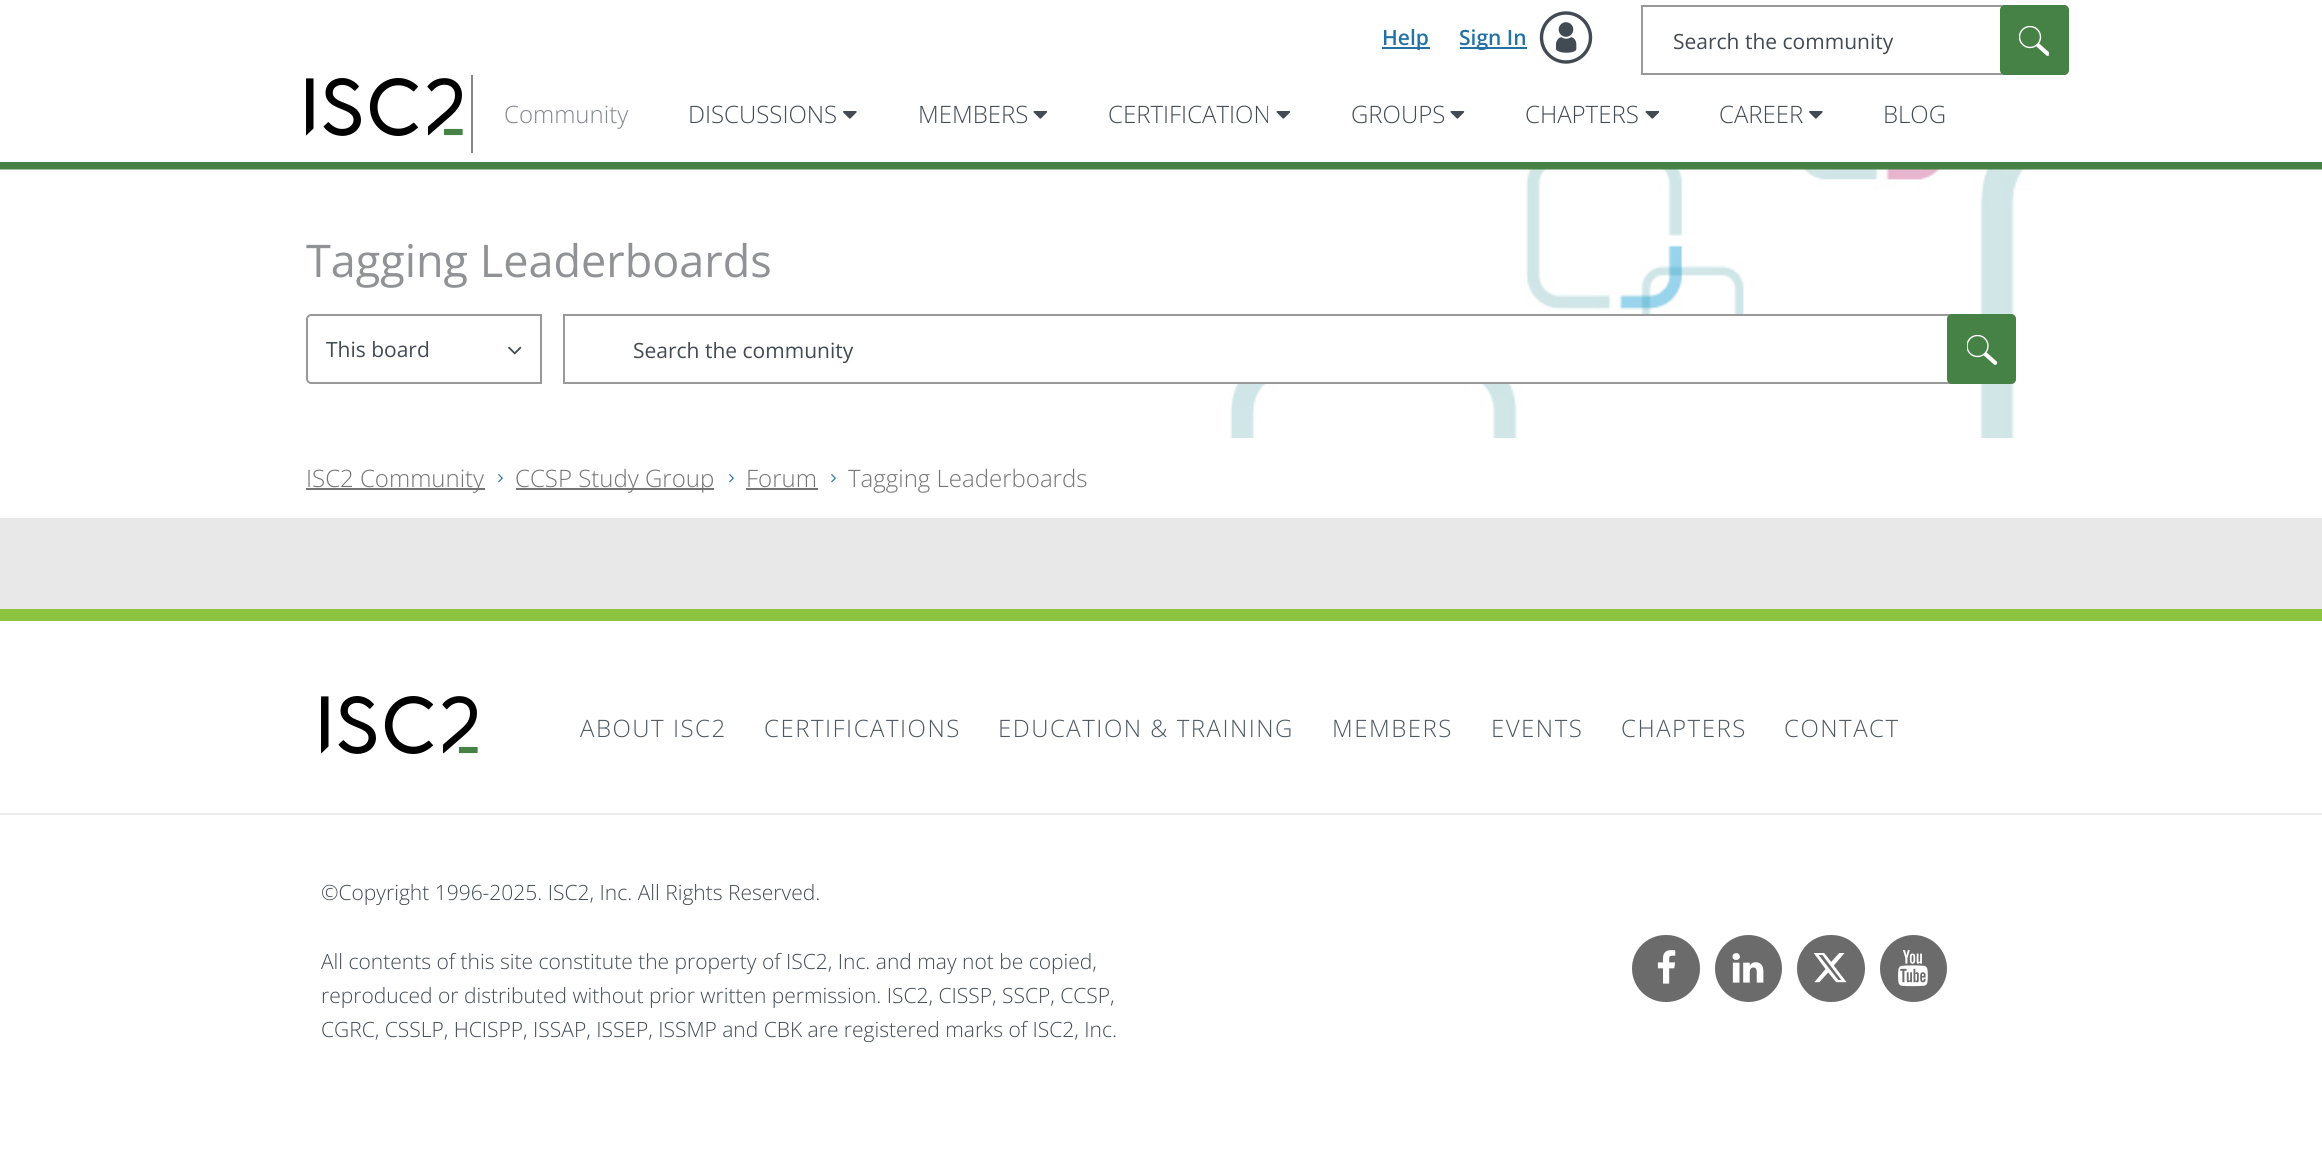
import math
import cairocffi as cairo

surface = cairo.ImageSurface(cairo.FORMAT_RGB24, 2322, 1163)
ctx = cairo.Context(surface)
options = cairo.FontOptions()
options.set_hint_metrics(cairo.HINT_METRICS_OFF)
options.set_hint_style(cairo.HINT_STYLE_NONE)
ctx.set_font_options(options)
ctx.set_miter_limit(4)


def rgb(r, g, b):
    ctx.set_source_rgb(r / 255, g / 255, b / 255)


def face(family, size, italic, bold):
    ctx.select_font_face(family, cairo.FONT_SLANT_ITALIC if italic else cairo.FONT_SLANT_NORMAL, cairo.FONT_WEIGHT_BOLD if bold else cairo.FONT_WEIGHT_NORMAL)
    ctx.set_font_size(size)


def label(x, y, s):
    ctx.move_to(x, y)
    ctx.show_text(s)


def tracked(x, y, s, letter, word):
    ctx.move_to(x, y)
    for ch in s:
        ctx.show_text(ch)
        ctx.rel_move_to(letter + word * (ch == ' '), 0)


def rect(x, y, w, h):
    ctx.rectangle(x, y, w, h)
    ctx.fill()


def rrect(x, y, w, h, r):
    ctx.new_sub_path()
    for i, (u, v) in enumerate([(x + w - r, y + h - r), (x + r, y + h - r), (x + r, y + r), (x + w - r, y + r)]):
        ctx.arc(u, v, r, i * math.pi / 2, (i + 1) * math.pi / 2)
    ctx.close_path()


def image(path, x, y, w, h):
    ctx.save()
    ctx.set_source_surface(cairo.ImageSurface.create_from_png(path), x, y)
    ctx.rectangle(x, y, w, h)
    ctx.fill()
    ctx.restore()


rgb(255, 255, 255)
ctx.paint()
rgb(232, 232, 232)
rect(0, 518, 2322, 91)
rgb(34, 114, 165)
rect(1382, 47, 48, 2)
face('Open Sans SemiBold', 21, 0, 0)
label(1382, 45, 'Help')
rect(1460, 47, 67, 2)
label(1459, 45, 'Sign In')
image('image0.png', 1539, 11, 54, 53)
ctx.new_path()
ctx.move_to(1642, 6)
ctx.line_to(2064, 6)
ctx.curve_to(2066, 6, 2068, 8, 2068, 10)
ctx.line_to(2068, 70)
ctx.curve_to(2068, 72, 2066, 74, 2064, 74)
ctx.line_to(1642, 74)
ctx.close_path()
rgb(153, 153, 153)
ctx.stroke()
face('Open Sans', 21, 0, 0)
rgb(66, 74, 84)
label(1673, 49, 'Search the community')
rgb(70, 129, 69)
rrect(2000, 5, 69, 70, 5)
ctx.fill()
image('image1.png', 2019, 26, 30, 30)
rect(0, 162, 2322, 8)
rgb(131, 135, 140)
rect(471, 75, 2, 78)
image('image2.png', 306, 78, 157, 58)
face('Open Sans Light', 24, 0, 0)
label(504, 123, 'Community')
rgb(66, 74, 84)
label(688, 123, 'DISCUSSIONS')
image('image3.png', 843, 111, 14, 8)
label(918, 123, 'MEMBERS')
image('image4.png', 1033, 111, 15, 8)
label(1108, 123, 'CERTIFICATION')
image('image4.png', 1276, 111, 15, 8)
label(1351, 123, 'GROUPS')
image('image4.png', 1450, 111, 15, 8)
label(1525, 123, 'CHAPTERS')
image('image4.png', 1645, 111, 15, 8)
label(1719, 123, 'CAREER')
image('image3.png', 1809, 111, 14, 8)
label(1883, 123, 'BLOG')
image('image5.png', 0, 169, 2322, 269)
face('Open Sans', 45, 0, 0)
rgb(144, 146, 150)
label(306, 277, 'Tagging Leaderboards')
ctx.new_path()
ctx.move_to(311, 315)
ctx.line_to(541, 315)
ctx.line_to(541, 383)
ctx.line_to(311, 383)
ctx.curve_to(309, 383, 307, 381, 307, 379)
ctx.line_to(307, 319)
ctx.curve_to(307, 317, 309, 315, 311, 315)
ctx.close_path()
rgb(153, 153, 153)
ctx.stroke()
face('Open Sans', 21, 0, 0)
rgb(66, 74, 84)
label(326, 357, 'This board')
image('image6.png', 508, 346, 14, 9)
rgb(255, 255, 255)
ctx.new_path()
ctx.move_to(564, 315)
ctx.line_to(2011, 315)
ctx.curve_to(2013, 315, 2015, 317, 2015, 319)
ctx.line_to(2015, 379)
ctx.curve_to(2015, 381, 2013, 383, 2011, 383)
ctx.line_to(564, 383)
ctx.close_path()
ctx.fill_preserve()
rgb(153, 153, 153)
ctx.stroke()
rgb(66, 74, 84)
label(633, 358, 'Search the community')
rgb(70, 129, 69)
rrect(1947, 314, 69, 70, 5)
ctx.fill()
image('image7.png', 1967, 335, 30, 30)
rgb(116, 116, 116)
rect(306, 488, 179, 2)
face('Open Sans Light', 24, 0, 0)
label(306, 487, 'ISC2 Community')
image('image8.png', 498, 474, 5, 9)
rect(516, 488, 198, 2)
label(515, 487, 'CCSP Study Group')
image('image8.png', 729, 474, 5, 9)
label(746, 487, 'Forum')
rect(746, 488, 72, 2)
image('image8.png', 831, 474, 5, 9)
label(848, 487, 'Tagging Leaderboards')
rgb(140, 196, 64)
rect(0, 609, 2322, 12)
image('image2.png', 321, 696, 157, 58)
rgb(77, 87, 98)
tracked(580, 737, 'ABOUT ISC2', 1.5, 0)
tracked(764, 737, 'CERTIFICATIONS', 1.5, 0)
tracked(998, 737, 'EDUCATION & TRAINING', 1.5, 0)
tracked(1332, 737, 'MEMBERS', 1.5, 0)
tracked(1491, 737, 'EVENTS', 1.5, 0)
tracked(1621, 737, 'CHAPTERS', 1.5, 0)
tracked(1784, 737, 'CONTACT', 1.5, 0)
rgb(236, 236, 238)
rect(0, 813, 2322, 2)
face('Open Sans Light', 21, 0, 0)
rgb(66, 74, 84)
label(321, 900, '©Copyright 1996-2025. ISC2, Inc. All Rights Reserved.')
label(321, 969, 'All contents of this site constitute the property of ISC2, Inc. and may not be copied,')
label(321, 1003, 'reproduced or distributed without prior written permission. ISC2, CISSP, SSCP, CCSP,')
label(321, 1037, 'CGRC, CSSLP, HCISPP, ISSAP, ISSEP, ISSMP and CBK are registered marks of ISC2, Inc.')
rgb(107, 107, 107)
rrect(1632, 935, 68, 67, 33.5)
ctx.fill()
image('image9.png', 1657, 950, 19, 34)
ctx.arc(1748.5, 968.5, 33.5, 0, 2 * math.pi)
ctx.fill()
image('image10.png', 1732, 953, 32, 30)
rrect(1797, 935, 68, 67, 33.5)
ctx.fill()
image('image11.png', 1814, 953, 33, 30)
ctx.arc(1913.5, 968.5, 33.5, 0, 2 * math.pi)
ctx.fill()
image('image12.png', 1898, 950, 30, 37)
surface.write_to_png('render.png')
